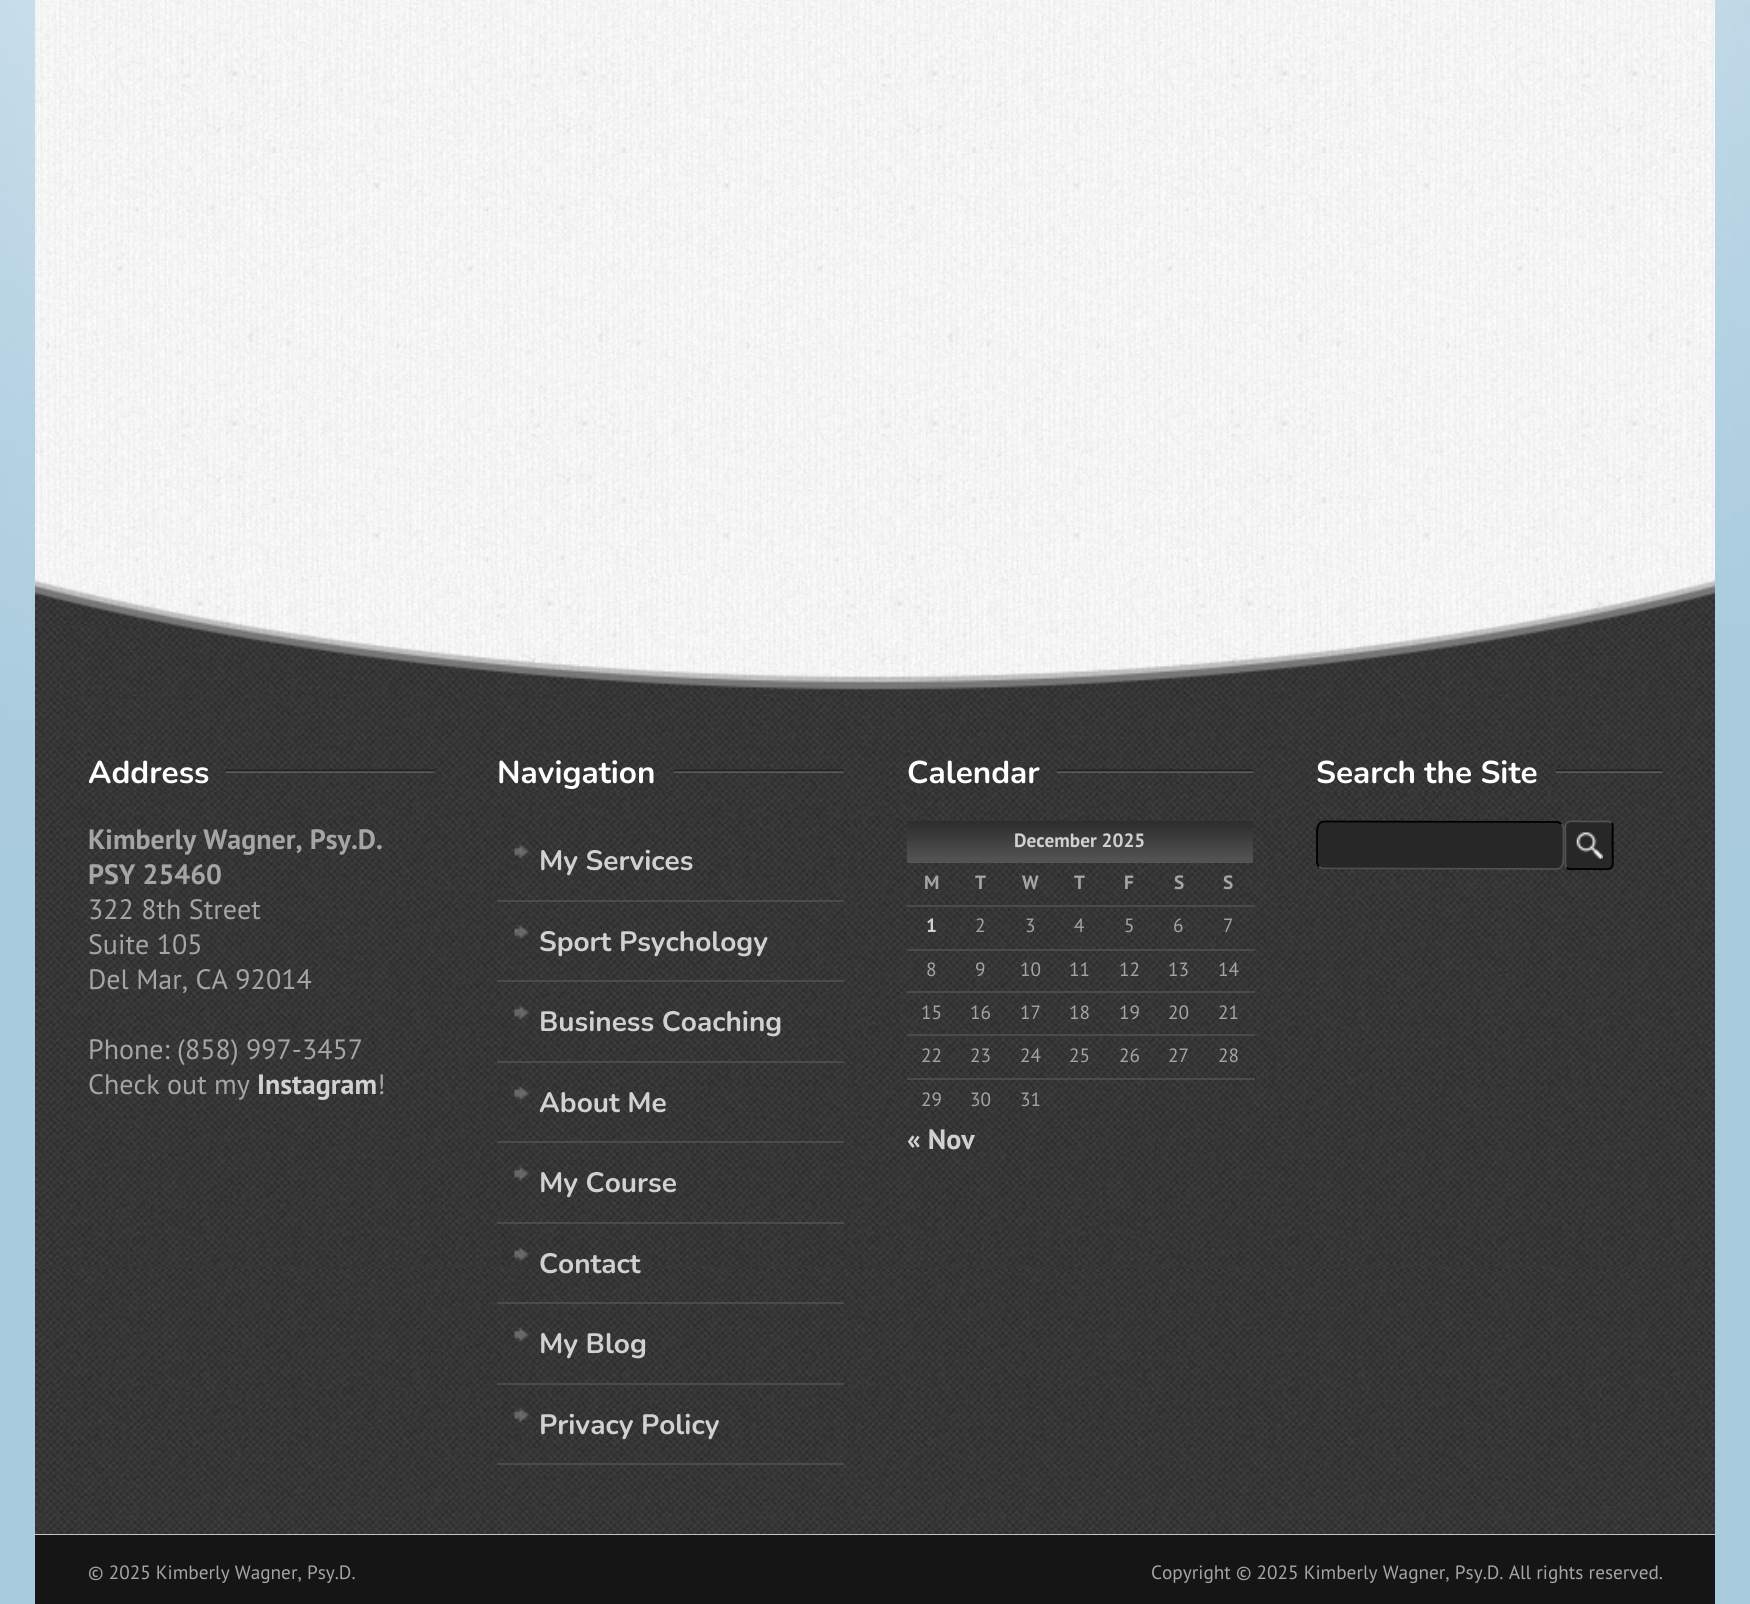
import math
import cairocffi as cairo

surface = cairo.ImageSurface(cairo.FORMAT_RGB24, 1750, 1604)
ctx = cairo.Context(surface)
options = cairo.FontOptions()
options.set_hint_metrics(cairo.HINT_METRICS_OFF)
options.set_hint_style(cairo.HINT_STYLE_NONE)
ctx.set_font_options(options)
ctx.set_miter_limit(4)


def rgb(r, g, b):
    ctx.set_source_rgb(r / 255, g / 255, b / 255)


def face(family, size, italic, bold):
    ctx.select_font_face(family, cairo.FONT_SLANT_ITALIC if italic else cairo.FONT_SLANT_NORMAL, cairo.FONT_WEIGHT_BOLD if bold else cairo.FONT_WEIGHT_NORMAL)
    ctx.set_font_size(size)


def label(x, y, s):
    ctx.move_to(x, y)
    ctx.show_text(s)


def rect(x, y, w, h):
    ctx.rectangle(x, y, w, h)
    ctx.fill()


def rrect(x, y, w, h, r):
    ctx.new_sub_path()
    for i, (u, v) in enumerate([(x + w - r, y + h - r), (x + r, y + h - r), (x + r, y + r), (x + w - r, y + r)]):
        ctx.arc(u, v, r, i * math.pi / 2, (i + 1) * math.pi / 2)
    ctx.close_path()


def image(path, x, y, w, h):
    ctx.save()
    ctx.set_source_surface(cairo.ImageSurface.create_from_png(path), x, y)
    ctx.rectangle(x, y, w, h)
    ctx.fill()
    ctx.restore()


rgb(169, 203, 222)
ctx.paint()
image('image0.png', 0, 0, 1750, 845)
image('image1.png', 35, 0, 1680, 1535)
image('image2.png', 35, 573, 1680, 123)
image('image3.png', 35, 696, 1680, 839)
image('image4.png', 87, 769, 347, 4)
image('image5.png', 87, 750, 139, 42)
face('Nunito', 31.5, 0, 1)
rgb(255, 255, 255)
label(88, 783, 'Address')
face('PT Sans', 28, 0, 1)
rgb(165, 165, 165)
label(88, 849, 'Kimberly Wagner, Psy.D.')
label(88, 884, 'PSY 25460')
face('PT Sans', 28, 0, 0)
label(88, 919, '322 8th Street')
label(88, 954, 'Suite 105')
label(88, 989, 'Del Mar, CA 92014')
label(88, 1059, 'Phone: (858) 997-3457')
label(88, 1094, 'Check out my')
face('PT Sans', 28, 0, 1)
rgb(209, 209, 209)
label(257, 1094, 'Instagram')
face('PT Sans', 28, 0, 0)
rgb(165, 165, 165)
label(377, 1094, '!')
image('image6.png', 673, 769, 171, 4)
image('image7.png', 497, 750, 177, 42)
face('Nunito', 31.5, 0, 1)
rgb(255, 255, 255)
label(497, 783, 'Navigation')
image('image8.png', 514, 844, 15, 15)
rgb(75, 75, 75)
rect(497, 900, 347, 2)
face('Nunito', 28, 0, 1)
rgb(209, 209, 209)
label(539, 870, 'My Services')
image('image9.png', 514, 925, 15, 14)
rgb(75, 75, 75)
rect(497, 980, 347, 2)
rgb(209, 209, 209)
label(539, 951, 'Sport Psychology')
image('image10.png', 514, 1005, 15, 15)
rgb(75, 75, 75)
rect(497, 1061, 347, 2)
rgb(209, 209, 209)
label(539, 1031, 'Business Coaching')
image('image11.png', 514, 1086, 15, 14)
rgb(75, 75, 75)
rect(497, 1141, 347, 2)
rgb(209, 209, 209)
label(539, 1112, 'About Me')
image('image12.png', 514, 1166, 15, 15)
rgb(75, 75, 75)
rect(497, 1222, 347, 2)
rgb(209, 209, 209)
label(539, 1192, 'My Course')
image('image13.png', 514, 1247, 15, 14)
rgb(75, 75, 75)
rect(497, 1302, 347, 2)
rgb(209, 209, 209)
label(539, 1273, 'Contact')
image('image14.png', 514, 1327, 15, 15)
rgb(75, 75, 75)
rect(497, 1383, 347, 2)
rgb(209, 209, 209)
label(539, 1353, 'My Blog')
image('image15.png', 514, 1408, 15, 14)
rgb(75, 75, 75)
rect(497, 1463, 347, 2)
rgb(209, 209, 209)
label(539, 1434, 'Privacy Policy')
image('image16.png', 906, 769, 347, 4)
image('image17.png', 906, 750, 151, 42)
face('Nunito', 31.5, 0, 1)
rgb(255, 255, 255)
label(907, 783, 'Calendar')
gradient = cairo.LinearGradient(907, 821, 907, 863)
gradient.add_color_stop_rgba(0, 0.173, 0.173, 0.173, 1)
gradient.add_color_stop_rgba(1, 0.333, 0.333, 0.333, 1)
ctx.set_source(gradient)
rect(907, 821, 346, 42)
face('PT Sans', 19.25, 0, 1)
rgb(209, 209, 209)
label(1014, 847, 'December 2025')
rgb(165, 165, 165)
label(924, 889, 'M')
label(975, 889, 'T')
label(1022, 889, 'W')
label(1074, 889, 'T')
label(1124, 889, 'F')
label(1174, 889, 'S')
label(1223, 889, 'S')
rgb(75, 75, 75)
rect(907, 905, 348, 2)
rgb(209, 209, 209)
label(926, 932, '1')
face('PT Sans', 19.25, 0, 0)
rgb(165, 165, 165)
label(975, 932, '2')
label(1025, 932, '3')
label(1074, 932, '4')
label(1124, 932, '5')
label(1173, 932, '6')
label(1223, 932, '7')
rgb(75, 75, 75)
rect(907, 949, 348, 2)
rgb(165, 165, 165)
label(926, 976, '8')
label(975, 976, '9')
label(1020, 976, '10')
label(1069, 976, '11')
label(1119, 976, '12')
label(1168, 976, '13')
label(1218, 976, '14')
rgb(75, 75, 75)
rect(907, 991, 348, 2)
rgb(165, 165, 165)
label(921, 1019, '15')
label(970, 1019, '16')
label(1020, 1019, '17')
label(1069, 1019, '18')
label(1119, 1019, '19')
label(1168, 1019, '20')
label(1218, 1019, '21')
rgb(75, 75, 75)
rect(907, 1034, 348, 2)
rgb(165, 165, 165)
label(921, 1062, '22')
label(970, 1062, '23')
label(1020, 1062, '24')
label(1069, 1062, '25')
label(1119, 1062, '26')
label(1168, 1062, '27')
label(1218, 1062, '28')
rgb(75, 75, 75)
rect(907, 1078, 348, 2)
rgb(165, 165, 165)
label(921, 1106, '29')
label(970, 1106, '30')
label(1020, 1106, '31')
face('PT Sans', 28, 0, 1)
rgb(209, 209, 209)
label(907, 1149, '« Nov')
image('image18.png', 1555, 769, 108, 4)
image('image19.png', 1316, 750, 240, 43)
face('Nunito', 31.5, 0, 1)
rgb(255, 255, 255)
label(1316, 783, 'Search the Site')
rgb(39, 39, 39)
rrect(1316, 821, 249, 49, 9)
ctx.fill()
ctx.new_path()
ctx.move_to(1561.5, 824)
ctx.curve_to(1564.5, 827, 1563.5, 831, 1563.5, 835)
ctx.line_to(1563.5, 856)
ctx.curve_to(1563.5, 861.5, 1563.5, 869, 1556, 869)
ctx.line_to(1322.5, 868.5)
ctx.line_to(1319, 866.5)
rgb(81, 81, 81)
ctx.set_line_width(1.8)
ctx.stroke()
ctx.new_path()
ctx.move_to(1319, 866.5)
ctx.curve_to(1316, 863.5, 1317, 859.5, 1317, 856)
ctx.line_to(1317, 835)
ctx.curve_to(1317, 829, 1317, 821.5, 1325, 821.5)
ctx.line_to(1558, 822)
ctx.line_to(1561.5, 824)
rgb(0, 0, 0)
ctx.stroke()
rgb(39, 39, 39)
rrect(1565, 821, 49, 49, 5)
ctx.fill()
image('image20.png', 1576, 832, 27, 27)
ctx.new_path()
ctx.move_to(1611.5, 823)
ctx.curve_to(1613.5, 825, 1612.5, 830, 1612.5, 832.5)
ctx.line_to(1612.5, 845)
ctx.curve_to(1612.5, 873.5, 1617, 869, 1589, 869)
ctx.line_to(1576, 869)
ctx.curve_to(1574, 869, 1569, 870, 1566.5, 867.5)
rgb(0, 0, 0)
ctx.stroke()
ctx.new_path()
ctx.move_to(1566.5, 867.5)
ctx.curve_to(1564.5, 865.5, 1565.5, 860.5, 1565.5, 858)
ctx.line_to(1565.5, 845)
ctx.curve_to(1565.5, 817, 1561, 821.5, 1589, 821.5)
ctx.line_to(1602, 821.5)
ctx.curve_to(1604, 821.5, 1609, 820.5, 1611.5, 823)
rgb(81, 81, 81)
ctx.stroke()
rgb(21, 21, 21)
rect(35, 1535, 1680, 69)
face('PT Sans', 19.25, 0, 0)
rgb(165, 165, 165)
label(88, 1579, '© 2025 Kimberly Wagner, Psy.D.')
label(1151, 1579, 'Copyright © 2025 Kimberly Wagner, Psy.D. All rights reserved.')
surface.write_to_png('render.png')
